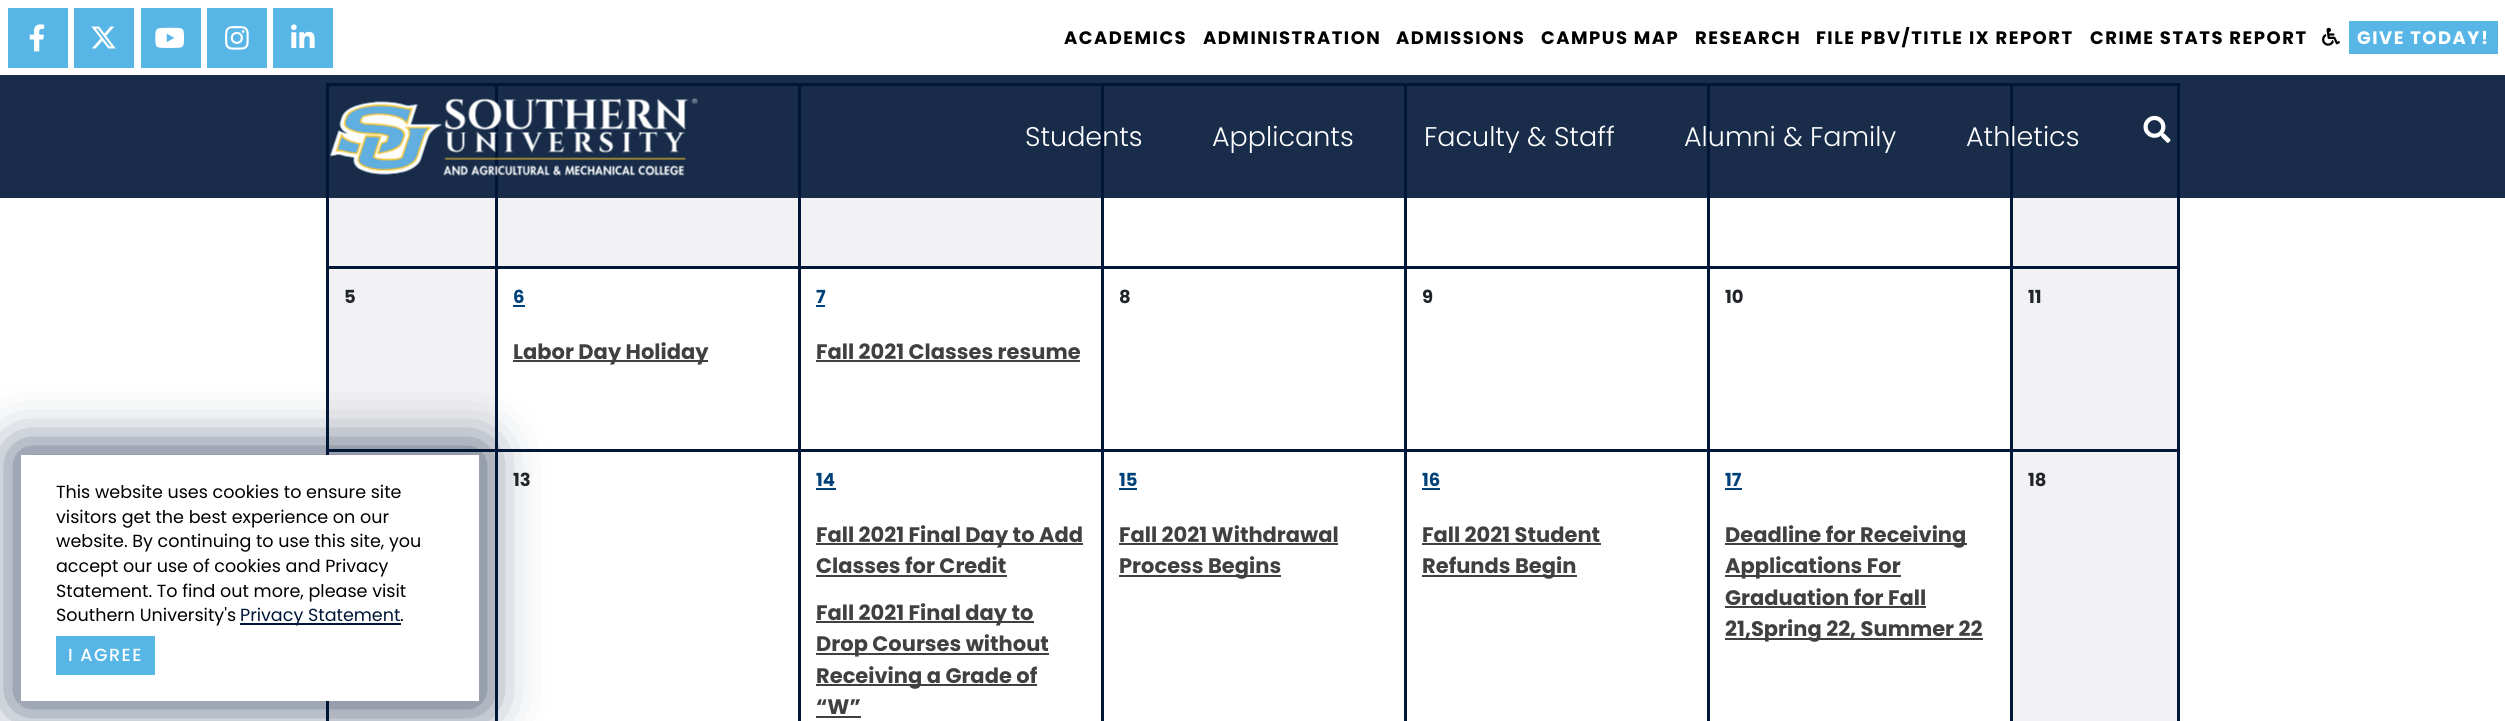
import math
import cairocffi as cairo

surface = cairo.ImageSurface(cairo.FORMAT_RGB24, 2505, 721)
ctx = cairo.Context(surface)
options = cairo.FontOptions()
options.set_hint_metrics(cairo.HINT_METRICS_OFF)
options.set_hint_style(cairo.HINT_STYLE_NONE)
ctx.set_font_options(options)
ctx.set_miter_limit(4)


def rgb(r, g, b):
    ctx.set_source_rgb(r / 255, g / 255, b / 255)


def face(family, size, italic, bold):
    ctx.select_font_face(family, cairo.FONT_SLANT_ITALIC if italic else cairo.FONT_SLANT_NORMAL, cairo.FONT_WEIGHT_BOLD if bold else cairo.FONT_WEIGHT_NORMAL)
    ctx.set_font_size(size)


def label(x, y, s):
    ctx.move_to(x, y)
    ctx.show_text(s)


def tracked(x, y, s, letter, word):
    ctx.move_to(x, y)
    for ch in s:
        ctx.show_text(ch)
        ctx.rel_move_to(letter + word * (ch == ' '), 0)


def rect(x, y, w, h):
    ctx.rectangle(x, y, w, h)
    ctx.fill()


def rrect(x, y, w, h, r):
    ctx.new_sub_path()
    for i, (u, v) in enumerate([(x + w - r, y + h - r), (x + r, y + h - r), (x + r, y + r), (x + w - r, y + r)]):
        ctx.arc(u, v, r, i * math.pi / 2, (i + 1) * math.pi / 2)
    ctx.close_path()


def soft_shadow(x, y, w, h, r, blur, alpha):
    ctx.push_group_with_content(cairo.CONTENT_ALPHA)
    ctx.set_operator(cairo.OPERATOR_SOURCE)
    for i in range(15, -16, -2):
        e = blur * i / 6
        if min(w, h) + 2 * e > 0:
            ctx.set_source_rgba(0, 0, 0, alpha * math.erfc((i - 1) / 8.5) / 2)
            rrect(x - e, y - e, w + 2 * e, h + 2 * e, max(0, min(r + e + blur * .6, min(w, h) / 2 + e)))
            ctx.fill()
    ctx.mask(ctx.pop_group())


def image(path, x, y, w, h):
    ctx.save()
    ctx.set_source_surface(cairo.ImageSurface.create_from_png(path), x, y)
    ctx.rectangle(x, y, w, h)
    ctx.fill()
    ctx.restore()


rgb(255, 255, 255)
ctx.paint()
ctx.rectangle(327.5, 84.5, 1851, 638)
rgb(0, 23, 56)
ctx.set_line_width(3)
ctx.stroke()
rgb(242, 241, 243)
rect(329, 86, 166, 180)
rect(498, 86, 300, 180)
rgb(0, 23, 56)
rect(495, 86, 3, 180)
rgb(242, 241, 243)
rect(801, 86, 300, 180)
rgb(0, 23, 56)
rect(798, 86, 3, 180)
rect(1101, 86, 3, 180)
rect(1404, 86, 3, 180)
rect(1707, 86, 3, 180)
rgb(242, 241, 243)
rect(2013, 86, 164, 180)
rgb(0, 23, 56)
rect(2010, 86, 3, 180)
ctx.set_source_rgba(0, 0.09, 0.22, 0.9)
rect(0, 75, 2505, 123)
rgb(88, 182, 231)
rect(8, 8, 60, 60)
image('image0.png', 29, 24, 16, 28)
rect(74, 8, 60, 60)
image('image1.png', 91, 26, 25, 23)
rect(141, 8, 60, 60)
image('image2.png', 155, 27, 30, 21)
rect(207, 8, 60, 60)
image('image3.png', 225, 26, 24, 24)
rect(273, 8, 60, 60)
image('image4.png', 291, 24, 24, 24)
face('Poppins', 18, 0, 1)
rgb(0, 0, 0)
tracked(1064, 44, 'ACADEMICS', 1.5, 0)
tracked(1203, 44, 'ADMINISTRATION', 1.5, 0)
tracked(1396, 44, 'ADMISSIONS', 1.5, 0)
tracked(1541, 44, 'CAMPUS MAP', 1.5, 0)
tracked(1695, 44, 'RESEARCH', 1.5, 0)
tracked(1816, 44, 'FILE PBV/TITLE IX REPORT', 1.5, 0)
tracked(2090, 44, 'CRIME STATS REPORT', 1.5, 0)
image('image5.png', 2322, 27, 18, 19)
rgb(88, 182, 231)
rect(2349, 21, 149, 33)
rgb(255, 255, 255)
tracked(2357, 44, 'GIVE TODAY!', 1.5, 0)
image('image6.png', 330, 98, 368, 78)
face('Poppins Light', 27, 0, 0)
label(1025, 146, 'Students')
label(1212, 146, 'Applicants')
label(1424, 146, 'Faculty & Staff')
label(1684, 146, 'Alumni & Family')
label(1966, 146, 'Athletics')
image('image7.png', 2143, 115, 28, 28)
rgb(242, 241, 243)
rect(329, 269, 166, 180)
rgb(0, 23, 56)
rect(495, 269, 3, 180)
rect(329, 449, 1848, 3)
rgb(242, 241, 243)
rect(329, 452, 166, 269)
rgb(0, 23, 56)
rect(495, 452, 3, 269)
rgb(0, 23, 56)
soft_shadow(17, 450, 466, 255, 0, 27, 0.75)
rgb(255, 255, 255)
rect(21, 455, 458, 246)
face('Poppins', 17.55, 0, 0)
rgb(0, 0, 0)
label(56, 498, 'This website uses cookies to ensure site')
label(56, 523, 'visitors get the best experience on our')
label(56, 547, 'website. By continuing to use this site, you')
label(56, 572, 'accept our use of cookies and Privacy')
label(56, 597, 'Statement. To find out more, please visit')
label(56, 621, 'Southern University\'s')
rgb(0, 23, 56)
rect(240, 623, 161, 2)
label(240, 621, 'Privacy Statement')
rgb(0, 0, 0)
label(400, 621, '.')
rgb(88, 182, 231)
rect(56, 636, 99, 39)
face('Poppins Medium', 17.55, 0, 0)
rgb(255, 255, 255)
tracked(68, 661, 'I AGREE', 1.5, 0)
rgb(0, 23, 56)
rect(329, 266, 1848, 3)
face('Poppins', 18, 0, 1)
rgb(33, 37, 41)
label(344, 303, '5')
rgb(0, 65, 121)
label(513, 303, '6')
rect(513, 305, 12, 2)
rgb(65, 63, 66)
rect(513, 360, 195, 2)
face('Poppins', 21, 0, 1)
label(513, 359, 'Labor Day Holiday')
rgb(0, 23, 56)
rect(798, 269, 3, 180)
face('Poppins', 18, 0, 1)
rgb(0, 65, 121)
label(816, 303, '7')
rect(816, 305, 9, 2)
face('Poppins', 21, 0, 1)
rgb(65, 63, 66)
label(816, 359, 'Fall 2021 Classes resume')
rect(816, 360, 264, 2)
rgb(0, 23, 56)
rect(1101, 269, 3, 180)
face('Poppins', 18, 0, 1)
rgb(33, 37, 41)
label(1119, 303, '8')
rgb(0, 23, 56)
rect(1404, 269, 3, 180)
rgb(33, 37, 41)
label(1422, 303, '9')
rgb(0, 23, 56)
rect(1707, 269, 3, 180)
rgb(33, 37, 41)
label(1725, 303, '10')
rgb(242, 241, 243)
rect(2013, 269, 164, 180)
rgb(0, 23, 56)
rect(2010, 269, 3, 180)
rgb(33, 37, 41)
label(2028, 303, '11')
label(513, 486, '13')
rgb(0, 23, 56)
rect(798, 452, 3, 269)
rgb(0, 65, 121)
label(816, 486, '14')
rect(816, 488, 20, 2)
rgb(65, 63, 66)
rect(816, 543, 267, 2)
face('Poppins', 21, 0, 1)
label(816, 542, 'Fall 2021 Final Day to Add')
label(816, 573, 'Classes for Credit')
rect(816, 575, 191, 2)
rect(816, 621, 218, 2)
label(816, 620, 'Fall 2021 Final day to')
rect(816, 653, 233, 2)
label(816, 651, 'Drop Courses without')
rect(816, 684, 221, 2)
label(816, 683, 'Receiving a Grade of')
label(816, 714, '“W”')
rect(816, 716, 45, 2)
rgb(0, 23, 56)
rect(1101, 452, 3, 269)
face('Poppins', 18, 0, 1)
rgb(0, 65, 121)
label(1119, 486, '15')
rect(1119, 488, 18, 2)
face('Poppins', 21, 0, 1)
rgb(65, 63, 66)
label(1119, 542, 'Fall 2021 Withdrawal')
rect(1119, 543, 219, 2)
rect(1119, 575, 162, 2)
label(1119, 573, 'Process Begins')
rgb(0, 23, 56)
rect(1404, 452, 3, 269)
face('Poppins', 18, 0, 1)
rgb(0, 65, 121)
label(1422, 486, '16')
rect(1422, 488, 18, 2)
face('Poppins', 21, 0, 1)
rgb(65, 63, 66)
label(1422, 542, 'Fall 2021 Student')
rect(1422, 543, 179, 2)
rect(1422, 575, 155, 2)
label(1422, 573, 'Refunds Begin')
rgb(0, 23, 56)
rect(1707, 452, 3, 269)
face('Poppins', 18, 0, 1)
rgb(0, 65, 121)
label(1725, 486, '17')
rect(1725, 488, 17, 2)
rgb(65, 63, 66)
rect(1725, 543, 242, 2)
face('Poppins', 21, 0, 1)
label(1725, 542, 'Deadline for Receiving')
rect(1725, 575, 176, 2)
label(1725, 573, 'Applications For')
label(1725, 605, 'Graduation for Fall')
rect(1725, 606, 201, 2)
rect(1725, 638, 258, 2)
label(1725, 636, '21,Spring 22, Summer 22')
rgb(242, 241, 243)
rect(2013, 452, 164, 269)
rgb(0, 23, 56)
rect(2010, 452, 3, 269)
face('Poppins', 18, 0, 1)
rgb(33, 37, 41)
label(2028, 486, '18')
surface.write_to_png('render.png')
